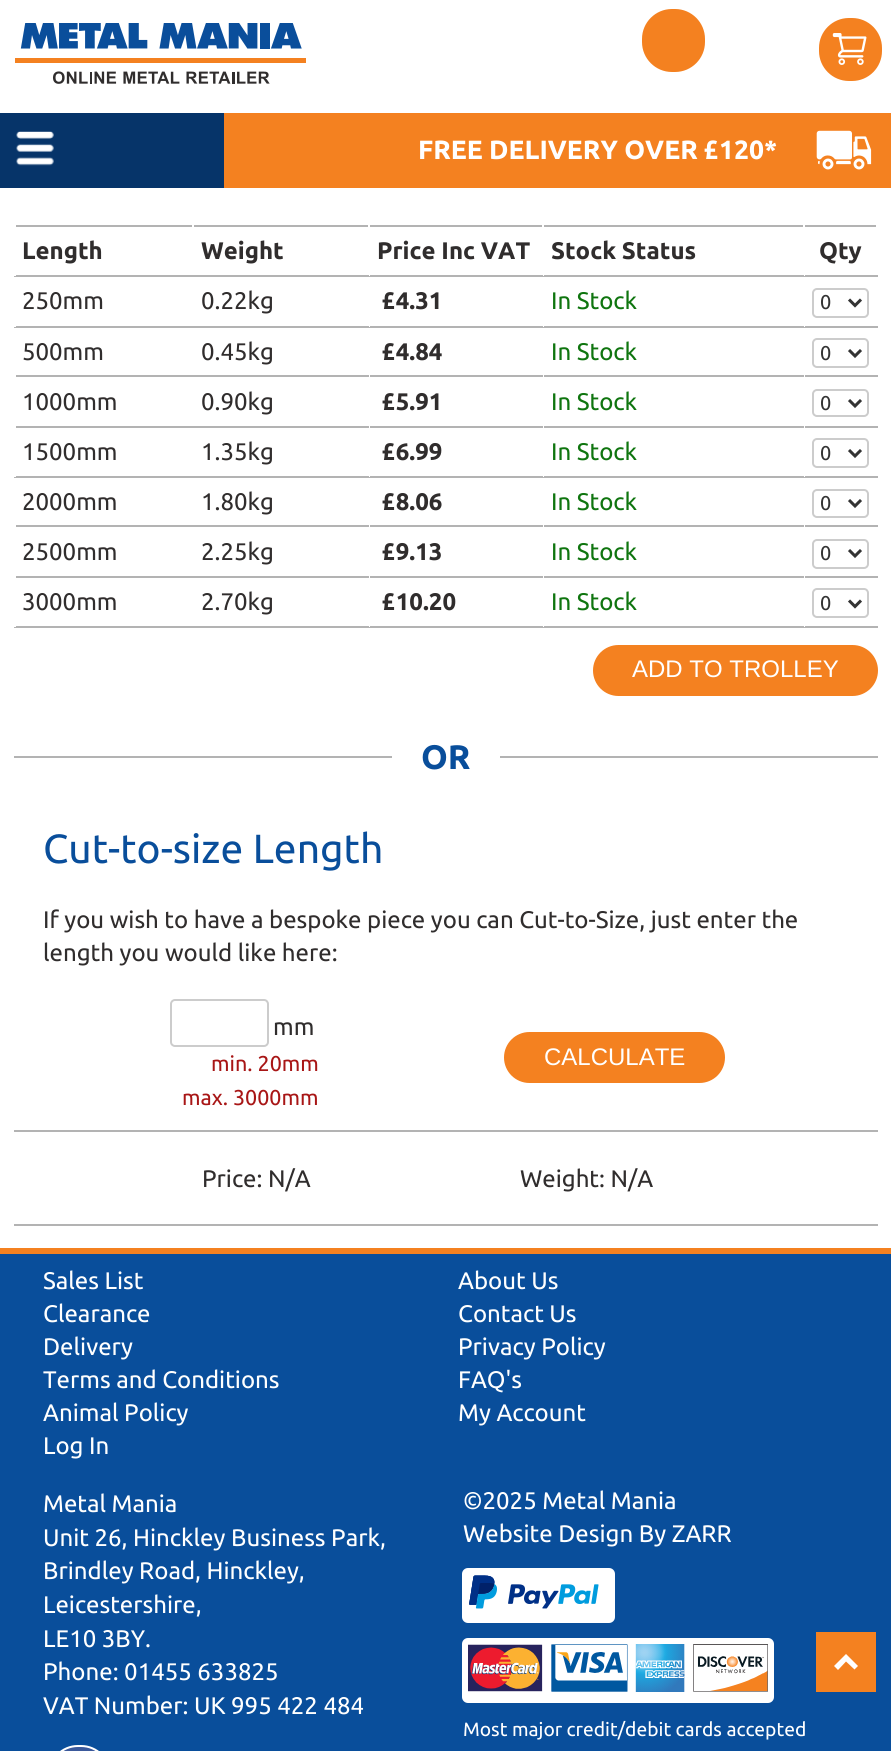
import math
import cairocffi as cairo

surface = cairo.ImageSurface(cairo.FORMAT_RGB24, 891, 1751)
ctx = cairo.Context(surface)
options = cairo.FontOptions()
options.set_hint_metrics(cairo.HINT_METRICS_OFF)
options.set_hint_style(cairo.HINT_STYLE_NONE)
ctx.set_font_options(options)
ctx.set_miter_limit(4)


def rgb(r, g, b):
    ctx.set_source_rgb(r / 255, g / 255, b / 255)


def face(family, size, italic, bold):
    ctx.select_font_face(family, cairo.FONT_SLANT_ITALIC if italic else cairo.FONT_SLANT_NORMAL, cairo.FONT_WEIGHT_BOLD if bold else cairo.FONT_WEIGHT_NORMAL)
    ctx.set_font_size(size)


def label(x, y, s):
    ctx.move_to(x, y)
    ctx.show_text(s)


def rect(x, y, w, h):
    ctx.rectangle(x, y, w, h)
    ctx.fill()


def rrect(x, y, w, h, r):
    ctx.new_sub_path()
    for i, (u, v) in enumerate([(x + w - r, y + h - r), (x + r, y + h - r), (x + r, y + r), (x + w - r, y + r)]):
        ctx.arc(u, v, r, i * math.pi / 2, (i + 1) * math.pi / 2)
    ctx.close_path()


def image(path, x, y, w, h):
    ctx.save()
    ctx.set_source_surface(cairo.ImageSurface.create_from_png(path), x, y)
    ctx.rectangle(x, y, w, h)
    ctx.fill()
    ctx.restore()


rgb(255, 255, 255)
ctx.paint()
image('image0.png', 15, 23, 291, 61)
rgb(244, 129, 32)
rrect(643, 10, 61, 61, 29)
ctx.fill_preserve()
ctx.stroke()
rrect(820, 19, 61, 61, 29)
ctx.fill_preserve()
ctx.stroke()
image('image1.png', 832, 33, 35, 32)
rgb(6, 52, 105)
rect(0, 113, 224, 75)
image('image2.png', 16, 131, 38, 35)
rgb(244, 129, 32)
rect(224, 113, 667, 75)
image('image3.png', 816, 130, 56, 40)
face('Ubuntu', 26.4, 0, 1)
rgb(255, 255, 255)
label(418, 159, 'FREE DELIVERY OVER £120*')
rgb(179, 179, 179)
rect(14, 225, 864, 2)
rect(803, 275, 75, 2)
rgb(255, 255, 255)
rect(803, 225, 2, 51)
rgb(179, 179, 179)
rect(542, 275, 262, 2)
rgb(255, 255, 255)
rect(542, 225, 2, 51)
rgb(179, 179, 179)
rect(368, 275, 175, 2)
rgb(255, 255, 255)
rect(368, 225, 2, 51)
rgb(179, 179, 179)
rect(192, 275, 177, 2)
rgb(255, 255, 255)
rect(192, 225, 2, 51)
rgb(179, 179, 179)
rect(14, 275, 180, 2)
rgb(255, 255, 255)
rect(14, 225, 2, 51)
face('Ubuntu', 24, 0, 1)
rgb(48, 45, 45)
label(22, 259, 'Length')
label(201, 259, 'Weight')
label(377, 259, 'Price Inc VAT')
label(551, 259, 'Stock Status')
rgb(255, 255, 255)
rect(876, 225, 2, 2)
rgb(48, 45, 45)
label(819, 259, 'Qty')
rgb(179, 179, 179)
rect(803, 326, 75, 2)
rgb(255, 255, 255)
rect(803, 326, 2, 1)
rgb(179, 179, 179)
rect(542, 326, 262, 2)
rgb(255, 255, 255)
rect(542, 326, 2, 1)
rgb(179, 179, 179)
rect(368, 326, 175, 2)
rgb(255, 255, 255)
rect(368, 326, 2, 1)
rgb(179, 179, 179)
rect(192, 326, 177, 2)
rgb(255, 255, 255)
rect(192, 326, 2, 1)
rgb(179, 179, 179)
rect(14, 326, 180, 2)
rgb(255, 255, 255)
rect(14, 326, 2, 1)
face('Ubuntu', 24, 0, 0)
rgb(48, 45, 45)
label(22, 309, '250mm')
label(201, 309, '0.22kg')
face('Ubuntu', 24, 0, 1)
label(382, 309, '£4.31')
face('Ubuntu', 24, 0, 0)
rgb(15, 117, 15)
label(551, 309, 'In Stock')
rrect(813, 289, 55, 28, 4)
rgb(204, 204, 204)
ctx.stroke()
ctx.new_path()
ctx.move_to(849, 299.5)
ctx.line_to(855, 305.5)
ctx.line_to(861, 299.5)
rgb(51, 51, 51)
ctx.set_line_width(3)
ctx.stroke()
face('Ubuntu', 20, 0, 0)
label(820, 309, '0')
rgb(179, 179, 179)
rect(803, 375, 75, 2)
rgb(255, 255, 255)
rect(803, 375, 2, 2)
rgb(179, 179, 179)
rect(542, 375, 262, 2)
rgb(255, 255, 255)
rect(542, 375, 2, 2)
rgb(179, 179, 179)
rect(368, 375, 175, 2)
rgb(255, 255, 255)
rect(368, 375, 2, 2)
rgb(179, 179, 179)
rect(192, 375, 177, 2)
rgb(255, 255, 255)
rect(192, 375, 2, 2)
rgb(179, 179, 179)
rect(14, 375, 180, 2)
rgb(255, 255, 255)
rect(14, 375, 2, 2)
face('Ubuntu', 24, 0, 0)
rgb(48, 45, 45)
label(22, 360, '500mm')
label(201, 360, '0.45kg')
face('Ubuntu', 24, 0, 1)
label(382, 360, '£4.84')
face('Ubuntu', 24, 0, 0)
rgb(15, 117, 15)
label(551, 360, 'In Stock')
rrect(813, 339, 55, 28, 4)
rgb(204, 204, 204)
ctx.set_line_width(2)
ctx.stroke()
ctx.new_path()
ctx.move_to(849, 350)
ctx.line_to(855, 356)
ctx.line_to(861, 350)
rgb(51, 51, 51)
ctx.set_line_width(3)
ctx.stroke()
face('Ubuntu', 20, 0, 0)
label(820, 360, '0')
rgb(179, 179, 179)
rect(803, 426, 75, 2)
rgb(255, 255, 255)
rect(803, 426, 2, 2)
rgb(179, 179, 179)
rect(542, 426, 262, 2)
rgb(255, 255, 255)
rect(542, 426, 2, 2)
rgb(179, 179, 179)
rect(368, 426, 175, 2)
rgb(255, 255, 255)
rect(368, 426, 2, 2)
rgb(179, 179, 179)
rect(192, 426, 177, 2)
rgb(255, 255, 255)
rect(192, 426, 2, 2)
rgb(179, 179, 179)
rect(14, 426, 180, 2)
rgb(255, 255, 255)
rect(14, 426, 2, 2)
face('Ubuntu', 24, 0, 0)
rgb(48, 45, 45)
label(22, 410, '1000mm')
label(201, 410, '0.90kg')
face('Ubuntu', 24, 0, 1)
label(382, 410, '£5.91')
face('Ubuntu', 24, 0, 0)
rgb(15, 117, 15)
label(551, 410, 'In Stock')
rrect(813, 390, 55, 26, 4)
rgb(204, 204, 204)
ctx.set_line_width(2)
ctx.stroke()
ctx.new_path()
ctx.move_to(849, 400)
ctx.line_to(855, 406)
ctx.line_to(861, 400)
rgb(51, 51, 51)
ctx.set_line_width(3)
ctx.stroke()
face('Ubuntu', 20, 0, 0)
label(820, 410, '0')
rgb(179, 179, 179)
rect(803, 476, 75, 2)
rgb(255, 255, 255)
rect(803, 476, 2, 1)
rgb(179, 179, 179)
rect(542, 476, 262, 2)
rgb(255, 255, 255)
rect(542, 476, 2, 1)
rgb(179, 179, 179)
rect(368, 476, 175, 2)
rgb(255, 255, 255)
rect(368, 476, 2, 1)
rgb(179, 179, 179)
rect(192, 476, 177, 2)
rgb(255, 255, 255)
rect(192, 476, 2, 1)
rgb(179, 179, 179)
rect(14, 476, 180, 2)
rgb(255, 255, 255)
rect(14, 476, 2, 1)
face('Ubuntu', 24, 0, 0)
rgb(48, 45, 45)
label(22, 460, '1500mm')
label(201, 460, '1.35kg')
face('Ubuntu', 24, 0, 1)
label(382, 460, '£6.99')
face('Ubuntu', 24, 0, 0)
rgb(15, 117, 15)
label(551, 460, 'In Stock')
rrect(813, 439, 55, 28, 4)
rgb(204, 204, 204)
ctx.set_line_width(2)
ctx.stroke()
ctx.new_path()
ctx.move_to(849, 450)
ctx.line_to(855, 456)
ctx.line_to(861, 450)
rgb(51, 51, 51)
ctx.set_line_width(3)
ctx.stroke()
face('Ubuntu', 20, 0, 0)
label(820, 460, '0')
rgb(179, 179, 179)
rect(803, 525, 75, 2)
rgb(255, 255, 255)
rect(803, 525, 2, 2)
rgb(179, 179, 179)
rect(542, 525, 262, 2)
rgb(255, 255, 255)
rect(542, 525, 2, 2)
rgb(179, 179, 179)
rect(368, 525, 175, 2)
rgb(255, 255, 255)
rect(368, 525, 2, 2)
rgb(179, 179, 179)
rect(192, 525, 177, 2)
rgb(255, 255, 255)
rect(192, 525, 2, 2)
rgb(179, 179, 179)
rect(14, 525, 180, 2)
rgb(255, 255, 255)
rect(14, 525, 2, 2)
face('Ubuntu', 24, 0, 0)
rgb(48, 45, 45)
label(22, 510, '2000mm')
label(201, 510, '1.80kg')
face('Ubuntu', 24, 0, 1)
label(382, 510, '£8.06')
face('Ubuntu', 24, 0, 0)
rgb(15, 117, 15)
label(551, 510, 'In Stock')
rrect(813, 490, 55, 27, 4)
rgb(204, 204, 204)
ctx.set_line_width(2)
ctx.stroke()
ctx.new_path()
ctx.move_to(849, 500)
ctx.line_to(855, 506)
ctx.line_to(861, 500)
rgb(51, 51, 51)
ctx.set_line_width(3)
ctx.stroke()
face('Ubuntu', 20, 0, 0)
label(820, 510, '0')
rgb(179, 179, 179)
rect(803, 576, 75, 2)
rgb(255, 255, 255)
rect(803, 576, 2, 2)
rgb(179, 179, 179)
rect(542, 576, 262, 2)
rgb(255, 255, 255)
rect(542, 576, 2, 2)
rgb(179, 179, 179)
rect(368, 576, 175, 2)
rgb(255, 255, 255)
rect(368, 576, 2, 2)
rgb(179, 179, 179)
rect(192, 576, 177, 2)
rgb(255, 255, 255)
rect(192, 576, 2, 2)
rgb(179, 179, 179)
rect(14, 576, 180, 2)
rgb(255, 255, 255)
rect(14, 576, 2, 2)
face('Ubuntu', 24, 0, 0)
rgb(48, 45, 45)
label(22, 560, '2500mm')
label(201, 560, '2.25kg')
face('Ubuntu', 24, 0, 1)
label(382, 560, '£9.13')
face('Ubuntu', 24, 0, 0)
rgb(15, 117, 15)
label(551, 560, 'In Stock')
rrect(813, 540, 55, 28, 4)
rgb(204, 204, 204)
ctx.set_line_width(2)
ctx.stroke()
ctx.new_path()
ctx.move_to(849, 550)
ctx.line_to(855, 556)
ctx.line_to(861, 550)
rgb(51, 51, 51)
ctx.set_line_width(3)
ctx.stroke()
face('Ubuntu', 20, 0, 0)
label(820, 560, '0')
rgb(179, 179, 179)
rect(803, 626, 75, 2)
rgb(255, 255, 255)
rect(803, 626, 2, 1)
rgb(179, 179, 179)
rect(542, 626, 262, 2)
rgb(255, 255, 255)
rect(542, 626, 2, 1)
rgb(179, 179, 179)
rect(368, 626, 175, 2)
rgb(255, 255, 255)
rect(368, 626, 2, 1)
rgb(179, 179, 179)
rect(192, 626, 177, 2)
rgb(255, 255, 255)
rect(192, 626, 2, 1)
rgb(179, 179, 179)
rect(14, 626, 180, 2)
rgb(255, 255, 255)
rect(14, 626, 2, 1)
face('Ubuntu', 24, 0, 0)
rgb(48, 45, 45)
label(22, 610, '3000mm')
label(201, 610, '2.70kg')
face('Ubuntu', 24, 0, 1)
label(382, 610, '£10.20')
face('Ubuntu', 24, 0, 0)
rgb(15, 117, 15)
label(551, 610, 'In Stock')
rrect(813, 589, 55, 28, 4)
rgb(204, 204, 204)
ctx.set_line_width(2)
ctx.stroke()
ctx.new_path()
ctx.move_to(849, 600.5)
ctx.line_to(855, 606.5)
ctx.line_to(861, 600.5)
rgb(51, 51, 51)
ctx.set_line_width(3)
ctx.stroke()
face('Ubuntu', 20, 0, 0)
label(820, 610, '0')
rgb(244, 129, 32)
rrect(594, 646, 283, 49, 24.5)
ctx.fill_preserve()
ctx.set_line_width(2)
ctx.stroke()
face('Liberation Sans', 24, 0, 0)
rgb(255, 255, 255)
label(632, 677, 'ADD TO TROLLEY')
rgb(179, 179, 179)
rect(14, 756, 378, 2)
face('Ubuntu', 34, 0, 1)
rgb(9, 78, 155)
label(421, 769, 'OR')
rgb(179, 179, 179)
rect(500, 756, 378, 2)
face('Ubuntu', 40.75, 0, 0)
rgb(9, 78, 155)
label(43, 863, 'Cut-to-size Length')
rgb(179, 179, 179)
rect(14, 1130, 864, 2)
face('Ubuntu', 24, 0, 0)
rgb(48, 45, 45)
label(43, 928, 'If you wish to have a bespoke piece you can Cut-to-Size, just enter the')
label(43, 961, 'length you would like here:')
rrect(171, 1000, 97, 46, 4)
rgb(204, 204, 204)
ctx.stroke()
rgb(48, 45, 45)
label(273, 1035, 'mm')
face('Ubuntu', 21.5, 0, 0)
rgb(168, 22, 22)
label(211, 1071, 'min. 20mm')
label(182, 1105, 'max. 3000mm')
rgb(244, 129, 32)
rrect(505, 1033, 219, 49, 24.5)
ctx.fill_preserve()
ctx.stroke()
face('Liberation Sans', 24, 0, 0)
rgb(255, 255, 255)
label(544, 1065, 'CALCULATE')
rgb(179, 179, 179)
rect(14, 1224, 864, 2)
face('Ubuntu', 24, 0, 0)
rgb(48, 45, 45)
label(202, 1187, 'Price: N/A')
label(520, 1187, 'Weight: N/A')
rgb(9, 78, 155)
rect(0, 1254, 891, 497)
rgb(244, 129, 32)
rect(0, 1248, 891, 6)
rgb(255, 255, 255)
label(43, 1289, 'Sales List')
label(458, 1289, 'About Us')
label(43, 1322, 'Clearance')
label(458, 1322, 'Contact Us')
label(43, 1355, 'Delivery')
label(458, 1355, 'Privacy Policy')
label(43, 1388, 'Terms and Conditions')
label(458, 1388, 'FAQ\'s')
label(43, 1421, 'Animal Policy')
label(458, 1421, 'My Account')
label(43, 1454, 'Log In')
label(43, 1512, 'Metal Mania')
label(43, 1546, 'Unit 26, Hinckley Business Park,')
label(43, 1579, 'Brindley Road, Hinckley,')
label(43, 1613, 'Leicestershire,')
label(43, 1647, 'LE10 3BY.')
label(43, 1680, 'Phone: 01455 633825')
label(43, 1714, 'VAT Number: UK 995 422 484')
label(463, 1509, '©2025 Metal Mania')
label(463, 1542, 'Website Design By ZARR')
rrect(463, 1569, 151, 53, 5)
ctx.fill_preserve()
ctx.stroke()
image('image4.png', 469, 1575, 130, 34)
rrect(463, 1639, 310, 63, 5)
ctx.fill_preserve()
ctx.stroke()
image('image5.png', 468, 1644, 300, 48)
face('Ubuntu', 19.25, 0, 0)
label(463, 1736, 'Most major credit/debit cards accepted')
rgb(59, 89, 155)
rrect(49, 1746, 61, 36, 29)
ctx.fill_preserve()
rgb(255, 255, 255)
ctx.stroke()
rgb(244, 129, 32)
rect(816, 1632, 60, 60)
rgb(255, 255, 255)
ctx.new_path()
ctx.move_to(846, 1654)
ctx.line_to(858, 1666)
ctx.line_to(854.5, 1669.5)
ctx.line_to(846, 1661.5)
ctx.line_to(838, 1670)
ctx.line_to(834, 1666)
ctx.close_path()
ctx.fill()
surface.write_to_png('render.png')
